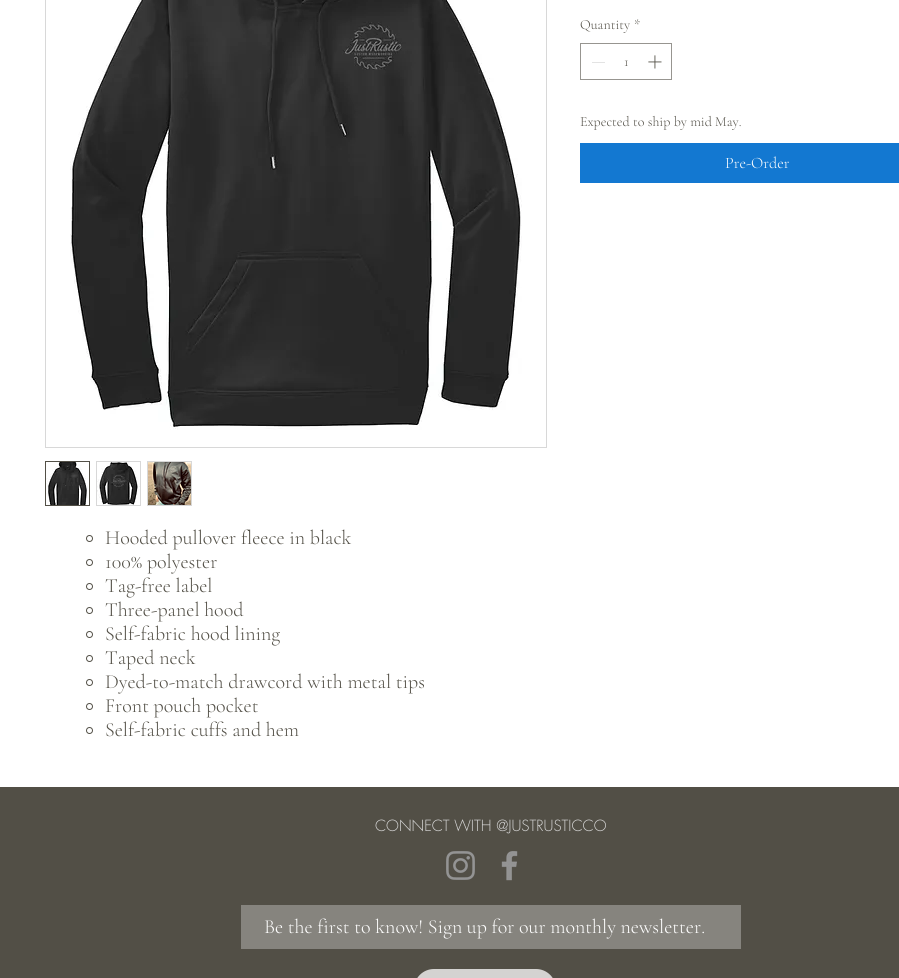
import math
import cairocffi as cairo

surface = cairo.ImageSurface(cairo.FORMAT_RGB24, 899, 978)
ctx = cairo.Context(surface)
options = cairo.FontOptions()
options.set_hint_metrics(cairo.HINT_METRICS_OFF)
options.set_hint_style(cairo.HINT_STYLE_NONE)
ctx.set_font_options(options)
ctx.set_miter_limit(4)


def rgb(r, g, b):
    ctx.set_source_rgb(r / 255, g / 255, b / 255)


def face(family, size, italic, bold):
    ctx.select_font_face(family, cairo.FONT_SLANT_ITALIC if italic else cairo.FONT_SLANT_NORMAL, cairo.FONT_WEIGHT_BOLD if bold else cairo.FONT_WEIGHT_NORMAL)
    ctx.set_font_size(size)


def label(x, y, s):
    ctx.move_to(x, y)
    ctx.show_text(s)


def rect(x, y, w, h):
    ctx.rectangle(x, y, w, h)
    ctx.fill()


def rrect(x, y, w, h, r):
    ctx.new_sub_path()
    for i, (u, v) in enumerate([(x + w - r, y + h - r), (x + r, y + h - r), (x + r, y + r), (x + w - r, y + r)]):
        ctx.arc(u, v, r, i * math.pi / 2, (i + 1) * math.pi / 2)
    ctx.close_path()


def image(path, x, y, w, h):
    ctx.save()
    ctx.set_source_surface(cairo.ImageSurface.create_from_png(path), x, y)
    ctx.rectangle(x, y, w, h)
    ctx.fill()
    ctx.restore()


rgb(255, 255, 255)
ctx.paint()
face('Cormorant Garamond Light', 14, 0, 0)
rgb(82, 79, 70)
label(580, 29, 'Quantity')
label(634, 29, '*')
ctx.rectangle(580.5, 43.5, 91, 36)
rgb(151, 149, 144)
ctx.set_line_width(1)
ctx.stroke()
rgb(227, 227, 227)
rect(592, 62, 13, 1)
rgb(82, 79, 70)
label(624, 66, '1')
image('image0.png', 648, 55, 14, 14)
label(580, 126, 'Expected to ship by mid May.')
rgb(19, 120, 209)
rect(580, 143, 319, 40)
face('Cormorant Garamond Light', 16, 0, 0)
rgb(255, 255, 255)
label(725, 168, 'Pre-Order')
ctx.rectangle(45.5, -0.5, 501, 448)
rgb(216, 216, 216)
ctx.stroke()
image('image1.png', 70, 0, 452, 430)
ctx.rectangle(45.5, 461.5, 44, 44)
rgb(82, 79, 70)
ctx.stroke()
image('image2.png', 46, 462, 42, 43)
ctx.rectangle(96.5, 461.5, 44, 44)
rgb(216, 216, 216)
ctx.stroke()
image('image3.png', 97, 462, 43, 43)
ctx.rectangle(147.5, 461.5, 44, 44)
ctx.stroke()
image('image4.png', 148, 462, 43, 43)
ctx.arc(89.5, 538.5, 3, 0, 2 * math.pi)
rgb(82, 79, 70)
ctx.stroke()
face('Cormorant Garamond Light', 20, 0, 0)
label(105, 544, 'Hooded pullover fleece in black')
ctx.new_path()
ctx.arc(89.5, 562.5, 3, 0, 2 * math.pi)
ctx.stroke()
label(105, 568, '100% polyester')
ctx.new_path()
ctx.arc(89.5, 586.5, 3, 0, 2 * math.pi)
ctx.stroke()
label(105, 592, 'Tag-free label')
ctx.new_path()
ctx.arc(89.5, 610.5, 3, 0, 2 * math.pi)
ctx.stroke()
label(105, 616, 'Three-panel hood')
ctx.new_path()
ctx.arc(89.5, 634.5, 3, 0, 2 * math.pi)
ctx.stroke()
label(105, 640, 'Self-fabric hood lining')
ctx.new_path()
ctx.arc(89.5, 658.5, 3, 0, 2 * math.pi)
ctx.stroke()
label(105, 664, 'Taped neck')
ctx.new_path()
ctx.arc(89.5, 682.5, 3, 0, 2 * math.pi)
ctx.stroke()
label(105, 688, 'Dyed-to-match drawcord with metal tips')
ctx.new_path()
ctx.arc(89.5, 706.5, 3, 0, 2 * math.pi)
ctx.stroke()
label(105, 712, 'Front pouch pocket')
ctx.new_path()
ctx.arc(89.5, 730.5, 3, 0, 2 * math.pi)
ctx.stroke()
label(105, 736, 'Self-fabric cuffs and hem')
rect(0, 787, 899, 191)
face('futura Light', 15, 0, 0)
rgb(216, 216, 216)
label(375, 831, 'CONNECT WITH @JUSTRUSTICCO')
image('image5.png', 446, 851, 29, 29)
image('image6.png', 501, 851, 17, 30)
rgb(134, 132, 126)
rect(241, 905, 500, 44)
face('Cormorant Garamond Light', 20, 0, 0)
rgb(255, 255, 255)
label(264, 933, 'Be the first to know! Sign up for our monthly newsletter.')
rgb(212, 211, 209)
rrect(414, 969, 142, 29, 20)
ctx.fill()
surface.write_to_png('render.png')
